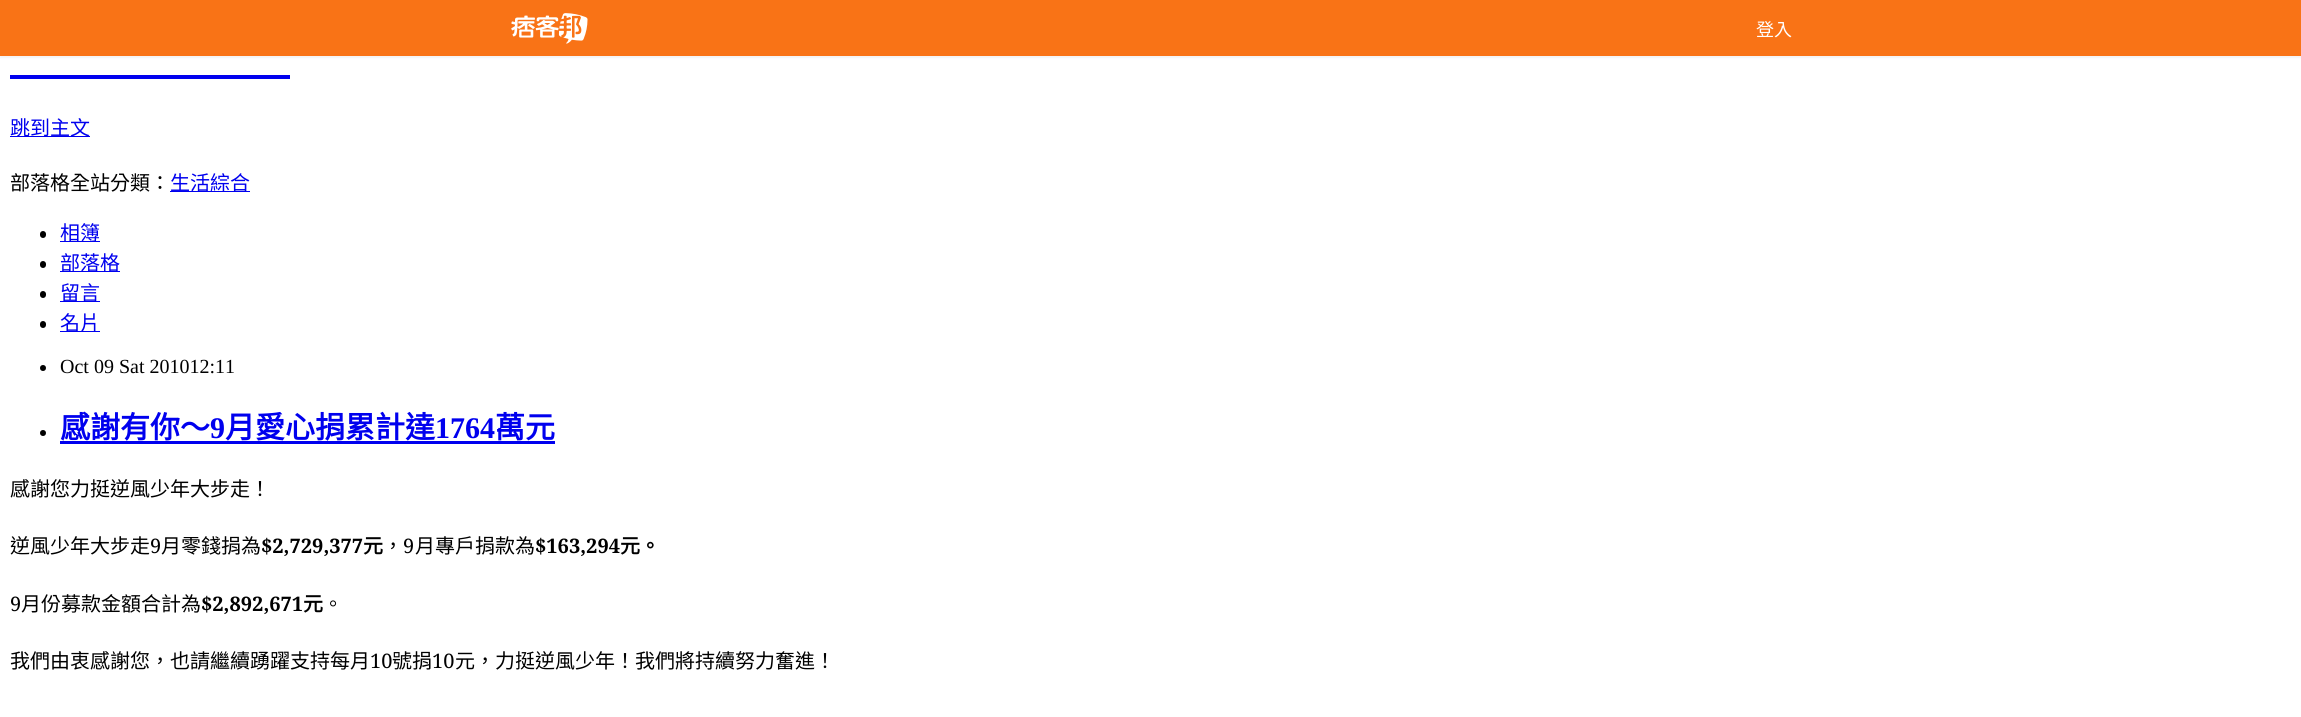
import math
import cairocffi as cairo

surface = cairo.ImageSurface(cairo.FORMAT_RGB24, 2301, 717)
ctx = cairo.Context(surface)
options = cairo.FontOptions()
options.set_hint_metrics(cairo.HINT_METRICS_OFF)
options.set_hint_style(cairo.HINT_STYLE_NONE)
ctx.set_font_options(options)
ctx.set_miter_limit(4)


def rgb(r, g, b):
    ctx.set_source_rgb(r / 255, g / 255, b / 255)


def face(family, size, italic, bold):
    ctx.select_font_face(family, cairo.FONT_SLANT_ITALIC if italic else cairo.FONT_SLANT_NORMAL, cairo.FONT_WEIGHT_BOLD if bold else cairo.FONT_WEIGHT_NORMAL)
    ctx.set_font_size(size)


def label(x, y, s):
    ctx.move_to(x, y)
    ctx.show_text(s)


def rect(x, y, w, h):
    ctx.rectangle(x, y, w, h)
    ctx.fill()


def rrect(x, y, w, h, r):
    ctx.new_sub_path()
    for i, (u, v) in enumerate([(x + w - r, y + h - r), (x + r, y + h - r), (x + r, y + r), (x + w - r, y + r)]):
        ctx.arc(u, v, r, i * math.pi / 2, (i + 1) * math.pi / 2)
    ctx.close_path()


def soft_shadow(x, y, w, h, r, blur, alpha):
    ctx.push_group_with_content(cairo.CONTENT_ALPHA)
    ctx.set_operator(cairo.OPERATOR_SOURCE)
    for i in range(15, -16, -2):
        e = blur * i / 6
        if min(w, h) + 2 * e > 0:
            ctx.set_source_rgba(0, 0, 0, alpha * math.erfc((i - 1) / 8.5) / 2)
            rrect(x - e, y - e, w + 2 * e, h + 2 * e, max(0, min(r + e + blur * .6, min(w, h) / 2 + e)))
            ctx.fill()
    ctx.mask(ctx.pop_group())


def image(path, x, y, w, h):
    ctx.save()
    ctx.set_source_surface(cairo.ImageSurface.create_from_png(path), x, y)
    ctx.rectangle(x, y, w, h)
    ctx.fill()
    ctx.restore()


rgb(255, 255, 255)
ctx.paint()
rgb(0, 0, 0)
soft_shadow(0, 1, 2301, 57, 0, 1, 0.05)
rgb(249, 115, 22)
rect(0, 0, 2301, 56)
image('image0.png', 511, 13, 77, 31)
face('Noto Sans CJK TC', 18, 0, 0)
rgb(255, 255, 255)
label(1756, 36, '登入')
rgb(0, 0, 238)
rect(10, 75, 280, 4)
rect(10, 136, 80, 1)
face('Noto Sans CJK TC', 20, 0, 0)
label(10, 135, '跳到主文')
rgb(0, 0, 0)
label(10, 190, '部落格全站分類：')
rgb(0, 0, 238)
rect(170, 191, 80, 1)
label(170, 190, '生活綜合')
rgb(0, 0, 0)
rrect(40, 231, 6, 7, 3)
ctx.fill()
rgb(0, 0, 238)
rect(60, 241, 40, 1)
label(60, 240, '相簿')
rgb(0, 0, 0)
rrect(40, 261, 6, 7, 3)
ctx.fill()
rgb(0, 0, 238)
rect(60, 271, 60, 1)
label(60, 270, '部落格')
rgb(0, 0, 0)
rrect(40, 291, 6, 7, 3)
ctx.fill()
rgb(0, 0, 238)
rect(60, 301, 40, 1)
label(60, 300, '留言')
rgb(0, 0, 0)
rrect(40, 321, 6, 7, 3)
ctx.fill()
rgb(0, 0, 238)
rect(60, 331, 40, 1)
label(60, 330, '名片')
rgb(0, 0, 0)
ctx.new_path()
ctx.arc(43, 368, 3, 0, 2 * math.pi)
ctx.fill()
face('Liberation Serif', 20, 0, 0)
label(60, 373, 'Oct 09 Sat 201012:11')
ctx.new_path()
ctx.arc(43, 433, 3, 0, 2 * math.pi)
ctx.fill()
face('Noto Sans CJK TC', 30, 0, 1)
rgb(0, 0, 238)
label(60, 438, '感謝有你～')
face('Liberation Serif', 30, 0, 1)
label(210, 438, '9')
rect(60, 441, 495, 3)
face('Noto Sans CJK TC', 30, 0, 1)
label(225, 438, '月愛心捐累計達')
face('Liberation Serif', 30, 0, 1)
label(435, 438, '1764')
face('Noto Sans CJK TC', 30, 0, 1)
label(495, 438, '萬元')
face('Noto Sans CJK TC', 20, 0, 0)
rgb(0, 0, 0)
label(10, 496, '感謝您力挺逆風少年大步走！')
label(10, 553, '逆風少年大步走')
face('Noto Serif', 20, 0, 0)
label(150, 553, '9')
face('Noto Sans CJK TC', 20, 0, 0)
label(161, 553, '月零錢捐為')
face('Noto Serif', 20, 0, 1)
label(261, 553, '$2,729,377')
face('Noto Sans CJK TC', 20, 0, 1)
label(363, 553, '元')
face('Noto Sans CJK TC', 20, 0, 0)
label(383, 553, '，')
face('Noto Serif', 20, 0, 0)
label(403, 553, '9')
face('Noto Sans CJK TC', 20, 0, 0)
label(415, 553, '月專戶捐款為')
face('Noto Serif', 20, 0, 1)
label(535, 553, '$163,294')
face('Noto Sans CJK TC', 20, 0, 1)
label(620, 553, '元。')
face('Noto Serif', 20, 0, 0)
label(10, 611, '9')
face('Noto Sans CJK TC', 20, 0, 0)
label(21, 611, '月份募款金額合計為')
face('Noto Serif', 20, 0, 1)
label(201, 611, '$2,892,671')
face('Noto Sans CJK TC', 20, 0, 1)
label(303, 611, '元')
face('Noto Sans CJK TC', 20, 0, 0)
label(323, 611, '。')
label(10, 668, '我們由衷感謝您，也請繼續踴躍支持每月')
face('Noto Serif', 20, 0, 0)
label(370, 668, '10')
face('Noto Sans CJK TC', 20, 0, 0)
label(392, 668, '號捐')
face('Noto Serif', 20, 0, 0)
label(432, 668, '10')
face('Noto Sans CJK TC', 20, 0, 0)
label(455, 668, '元，力挺逆風少年！我們將持續努力奮進！')
surface.write_to_png('render.png')
